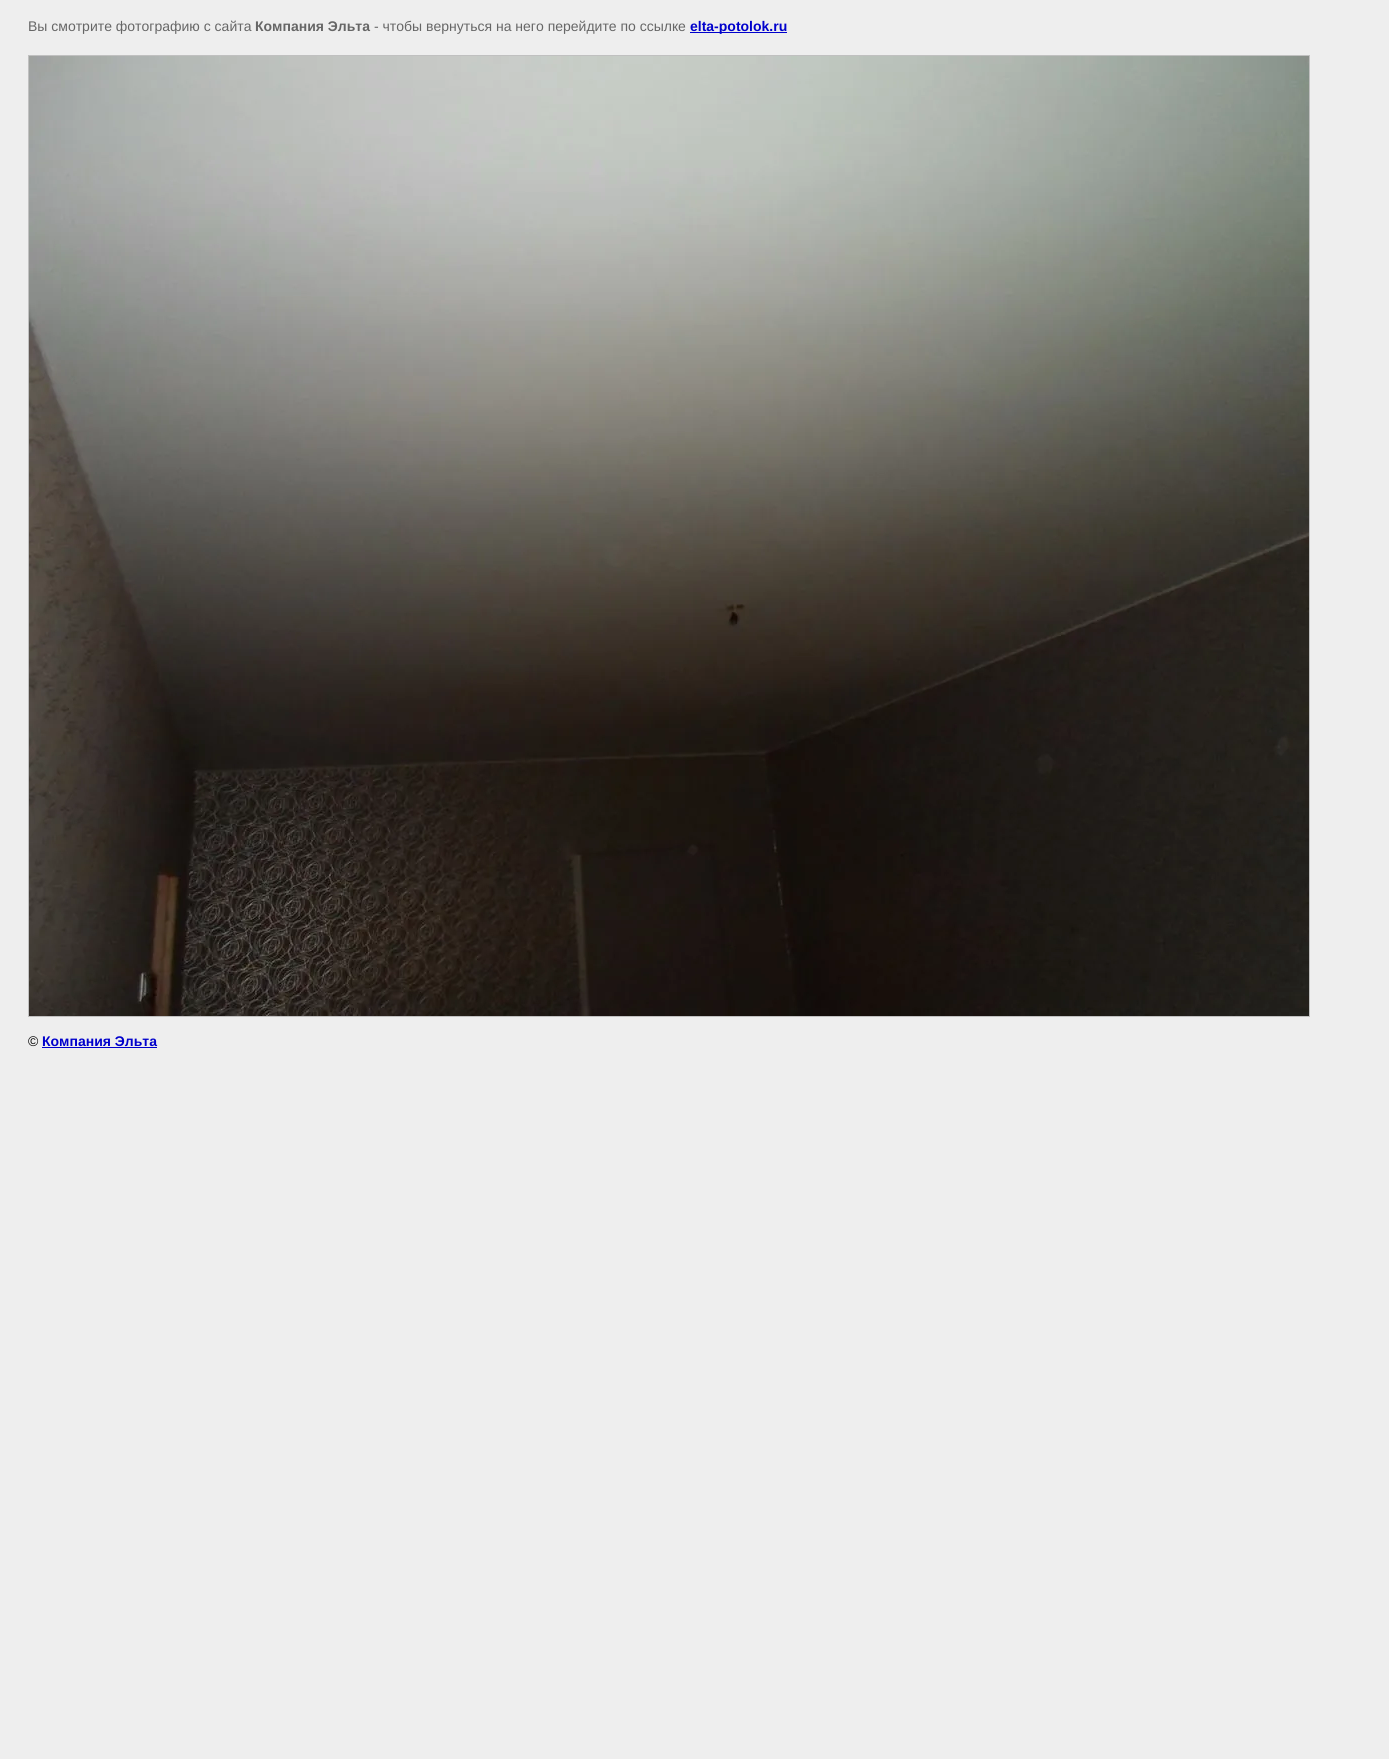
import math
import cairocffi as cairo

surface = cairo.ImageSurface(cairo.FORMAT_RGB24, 1389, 1759)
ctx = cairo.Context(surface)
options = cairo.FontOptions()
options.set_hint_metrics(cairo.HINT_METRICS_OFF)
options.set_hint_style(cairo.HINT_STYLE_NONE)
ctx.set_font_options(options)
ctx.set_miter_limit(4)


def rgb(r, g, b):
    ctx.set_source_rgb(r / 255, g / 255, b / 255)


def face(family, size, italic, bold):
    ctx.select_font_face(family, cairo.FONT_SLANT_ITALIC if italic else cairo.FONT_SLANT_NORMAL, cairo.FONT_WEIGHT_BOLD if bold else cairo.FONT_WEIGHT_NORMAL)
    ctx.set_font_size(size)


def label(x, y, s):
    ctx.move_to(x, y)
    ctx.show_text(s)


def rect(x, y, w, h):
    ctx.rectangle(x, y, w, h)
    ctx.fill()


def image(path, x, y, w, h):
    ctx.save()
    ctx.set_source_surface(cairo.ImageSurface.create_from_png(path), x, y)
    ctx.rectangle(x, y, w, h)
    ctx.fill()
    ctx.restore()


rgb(238, 238, 238)
ctx.paint()
face('Liberation Sans', 14, 0, 0)
rgb(102, 102, 102)
label(28, 31, 'Вы смотрите фотографию с сайта')
face('Liberation Sans', 14, 0, 1)
label(255, 31, 'Компания Эльта')
face('Liberation Sans', 14, 0, 0)
label(374, 31, '- чтобы вернуться на него перейдите по ссылке')
rgb(0, 0, 204)
rect(690, 32, 97, 1)
face('Liberation Sans', 14, 0, 1)
label(690, 31, 'elta-potolok.ru')
ctx.rectangle(28.5, 55.5, 1281, 961)
rgb(192, 192, 192)
ctx.set_line_width(1)
ctx.stroke()
image('image0.png', 29, 56, 1280, 960)
face('Liberation Sans', 14, 0, 0)
rgb(0, 0, 0)
label(28, 1046, '©')
face('Liberation Sans', 14, 0, 1)
rgb(0, 0, 204)
label(42, 1046, 'Компания Эльта')
rect(42, 1047, 115, 1)
surface.write_to_png('render.png')
